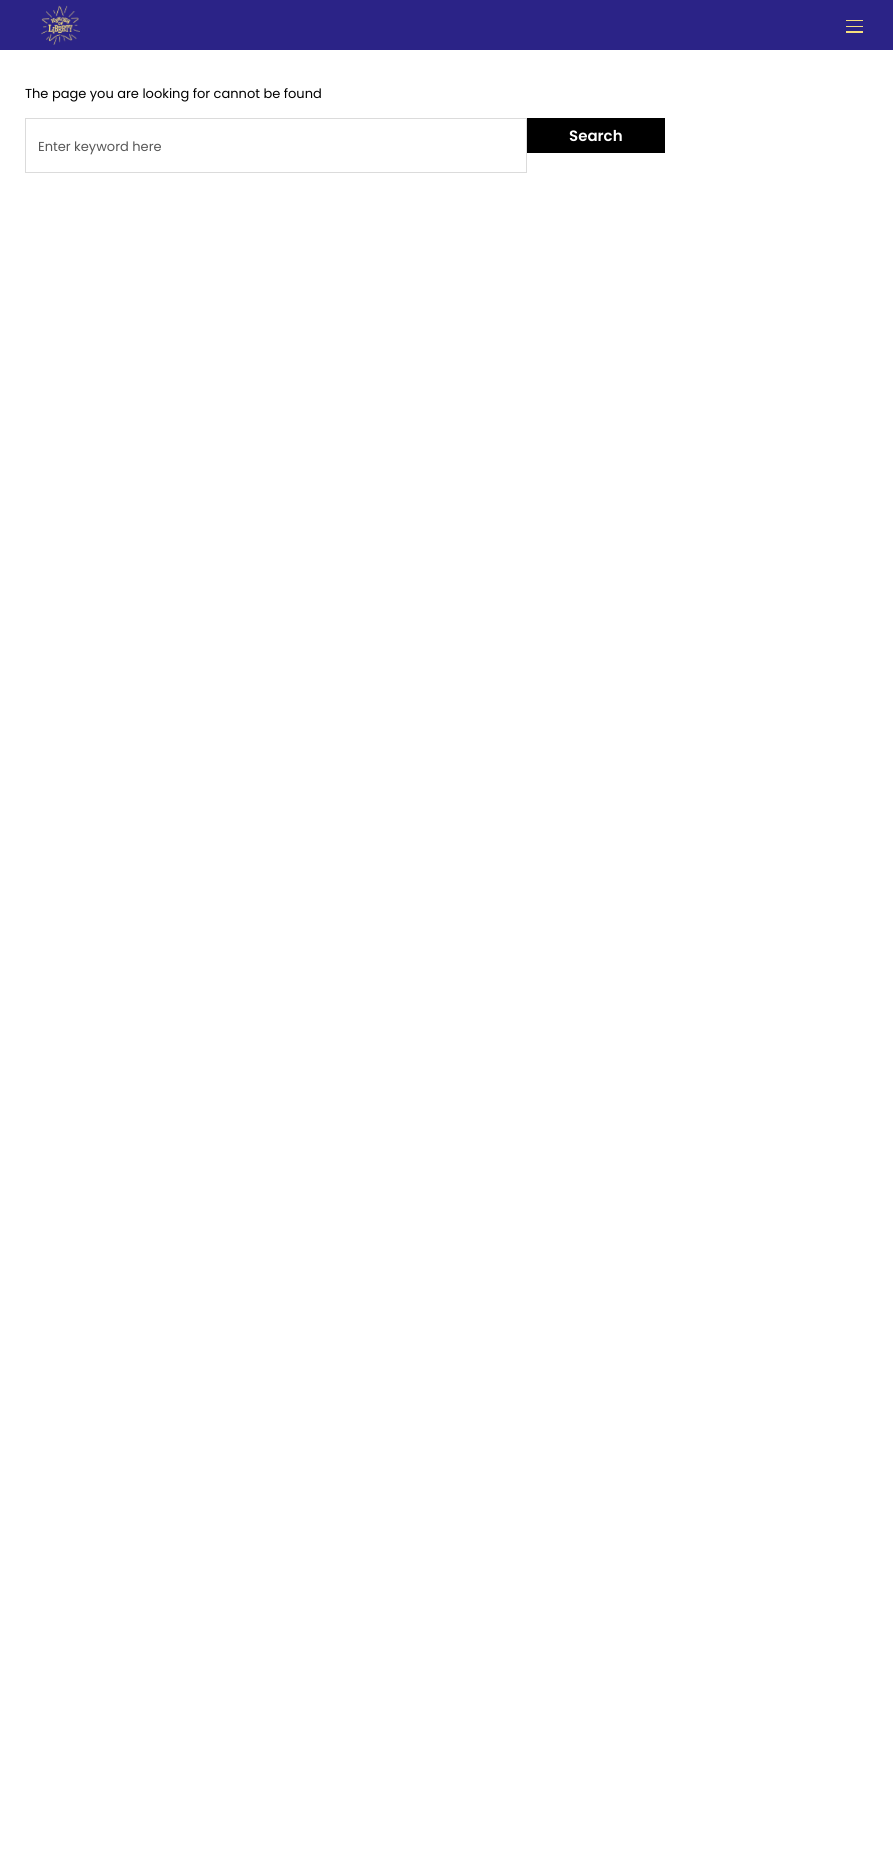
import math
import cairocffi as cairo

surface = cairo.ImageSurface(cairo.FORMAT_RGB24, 893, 1853)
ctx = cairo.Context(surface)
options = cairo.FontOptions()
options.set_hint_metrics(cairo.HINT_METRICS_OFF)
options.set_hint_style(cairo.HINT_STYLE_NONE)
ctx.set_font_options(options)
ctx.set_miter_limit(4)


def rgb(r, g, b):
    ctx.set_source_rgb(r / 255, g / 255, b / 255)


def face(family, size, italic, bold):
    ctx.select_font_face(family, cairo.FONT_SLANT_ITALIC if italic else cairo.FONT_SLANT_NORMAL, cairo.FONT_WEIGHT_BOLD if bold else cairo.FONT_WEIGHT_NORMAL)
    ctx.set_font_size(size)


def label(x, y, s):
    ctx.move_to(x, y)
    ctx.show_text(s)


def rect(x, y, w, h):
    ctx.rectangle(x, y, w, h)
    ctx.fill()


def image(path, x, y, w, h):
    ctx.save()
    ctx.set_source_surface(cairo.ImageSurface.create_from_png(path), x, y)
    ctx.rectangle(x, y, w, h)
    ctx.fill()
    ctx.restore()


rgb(255, 255, 255)
ctx.paint()
rgb(43, 35, 135)
rect(0, 0, 893, 50)
image('image0.png', 41, 5, 39, 40)
rgb(246, 223, 125)
rect(846, 20, 17, 1)
rect(846, 26, 17, 1)
rect(846, 31, 17, 2)
face('Poppins', 13, 0, 0)
rgb(0, 0, 0)
label(25, 98, 'The page you are looking for cannot be found')
rect(527, 118, 138, 35)
face('Poppins SemiBold', 15, 0, 0)
rgb(255, 255, 255)
label(569, 141, 'Search')
ctx.rectangle(25.5, 118.5, 501, 54)
rgb(219, 219, 219)
ctx.set_line_width(1)
ctx.stroke()
face('Poppins', 13, 0, 0)
rgb(87, 87, 87)
label(38, 151, 'Enter keyword here')
surface.write_to_png('render.png')
